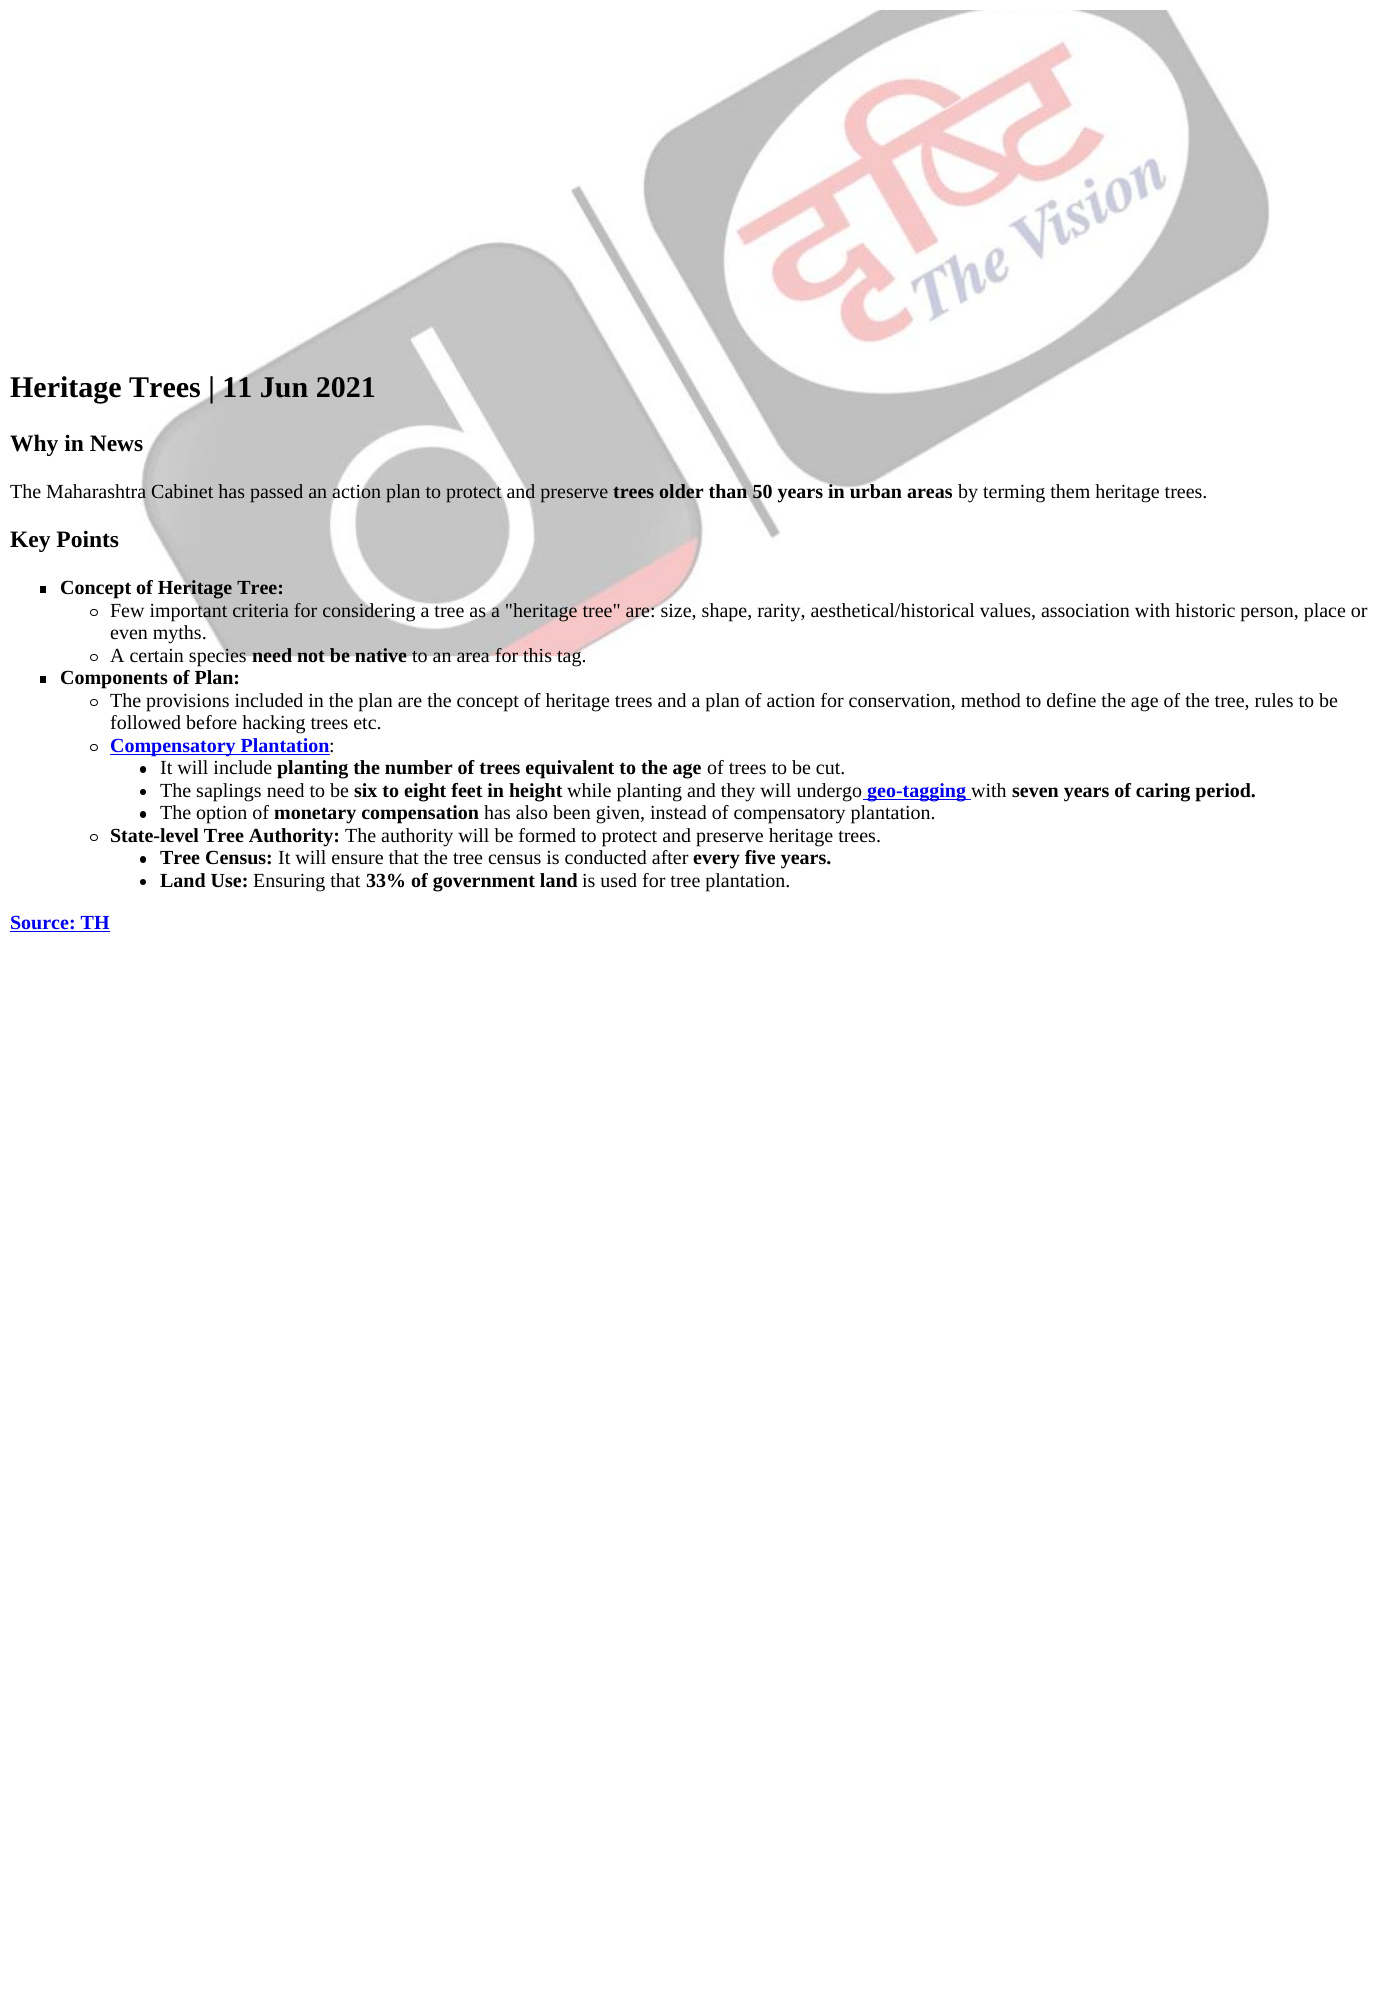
import math
import cairocffi as cairo

surface = cairo.ImageSurface(cairo.FORMAT_RGB24, 1381, 1990)
ctx = cairo.Context(surface)
options = cairo.FontOptions()
options.set_hint_metrics(cairo.HINT_METRICS_OFF)
options.set_hint_style(cairo.HINT_STYLE_NONE)
ctx.set_font_options(options)
ctx.set_miter_limit(4)


def rgb(r, g, b):
    ctx.set_source_rgb(r / 255, g / 255, b / 255)


def face(family, size, italic, bold):
    ctx.select_font_face(family, cairo.FONT_SLANT_ITALIC if italic else cairo.FONT_SLANT_NORMAL, cairo.FONT_WEIGHT_BOLD if bold else cairo.FONT_WEIGHT_NORMAL)
    ctx.set_font_size(size)


def label(x, y, s):
    ctx.move_to(x, y)
    ctx.show_text(s)


def rect(x, y, w, h):
    ctx.rectangle(x, y, w, h)
    ctx.fill()


def rrect(x, y, w, h, r):
    ctx.new_sub_path()
    for i, (u, v) in enumerate([(x + w - r, y + h - r), (x + r, y + h - r), (x + r, y + r), (x + w - r, y + r)]):
        ctx.arc(u, v, r, i * math.pi / 2, (i + 1) * math.pi / 2)
    ctx.close_path()


def image(path, x, y, w, h):
    ctx.save()
    ctx.set_source_surface(cairo.ImageSurface.create_from_png(path), x, y)
    ctx.rectangle(x, y, w, h)
    ctx.fill()
    ctx.restore()


rgb(255, 255, 255)
ctx.paint()
image('image0.png', 140, 10, 1130, 647)
face('Liberation Serif', 30, 0, 1)
rgb(0, 0, 0)
label(10, 397, 'Heritage Trees | 11 Jun 2021')
face('Liberation Serif', 23.5, 0, 1)
label(10, 451, 'Why in News')
face('Liberation Serif', 20, 0, 0)
label(10, 498, 'The Maharashtra Cabinet has passed an action plan to protect and preserve')
face('Liberation Serif', 20, 0, 1)
label(613, 498, 'trees older than 50 years in urban areas')
face('Liberation Serif', 20, 0, 0)
label(958, 498, 'by terming them heritage trees.')
face('Liberation Serif', 23.5, 0, 1)
label(10, 547, 'Key Points')
rect(40, 586, 6, 7)
face('Liberation Serif', 20, 0, 1)
label(60, 594, 'Concept of Heritage Tree:')
rrect(90.5, 609.5, 7, 6, 3)
ctx.set_line_width(1)
ctx.stroke()
face('Liberation Serif', 20, 0, 0)
label(110, 617, 'Few important criteria for considering a tree as a "heritage tree" are: size, shape, rarity, aesthetical/historical values, association with historic person, place or')
label(110, 639, 'even myths.')
rrect(90.5, 654.5, 7, 6, 3)
ctx.stroke()
label(110, 662, 'A certain species')
face('Liberation Serif', 20, 0, 1)
label(252, 662, 'need not be native')
face('Liberation Serif', 20, 0, 0)
label(412, 662, 'to an area for this tag.')
rect(40, 676, 6, 7)
face('Liberation Serif', 20, 0, 1)
label(60, 684, 'Components of Plan:')
rrect(90.5, 699.5, 7, 6, 3)
ctx.stroke()
face('Liberation Serif', 20, 0, 0)
label(110, 707, 'The provisions included in the plan are the concept of heritage trees and a plan of action for conservation, method to define the age of the tree, rules to be')
label(110, 729, 'followed before hacking trees etc.')
rrect(90.5, 744.5, 7, 6, 3)
ctx.stroke()
rgb(0, 0, 238)
rect(110, 754, 220, 1)
face('Liberation Serif', 20, 0, 1)
label(110, 752, 'Compensatory Plantation')
face('Liberation Serif', 20, 0, 0)
rgb(0, 0, 0)
label(329, 752, ':')
rrect(140, 766, 6, 7, 3)
ctx.fill()
label(160, 774, 'It will include')
face('Liberation Serif', 20, 0, 1)
label(277, 774, 'planting the number of trees equivalent to the age')
face('Liberation Serif', 20, 0, 0)
label(707, 774, 'of trees to be cut.')
ctx.new_path()
ctx.arc(143, 792, 3, 0, 2 * math.pi)
ctx.fill()
label(160, 797, 'The saplings need to be')
face('Liberation Serif', 20, 0, 1)
label(354, 797, 'six to eight feet in height')
face('Liberation Serif', 20, 0, 0)
label(567, 797, 'while planting and they will undergo')
rgb(0, 0, 238)
rect(863, 799, 108, 1)
face('Liberation Serif', 20, 0, 1)
label(867, 797, 'geo-tagging')
face('Liberation Serif', 20, 0, 0)
rgb(0, 0, 0)
label(971, 797, 'with')
face('Liberation Serif', 20, 0, 1)
label(1012, 797, 'seven years of caring period.')
rrect(140, 811, 6, 7, 3)
ctx.fill()
face('Liberation Serif', 20, 0, 0)
label(160, 819, 'The option of')
face('Liberation Serif', 20, 0, 1)
label(274, 819, 'monetary compensation')
face('Liberation Serif', 20, 0, 0)
label(484, 819, 'has also been given, instead of compensatory plantation.')
rrect(90.5, 834.5, 7, 6, 3)
ctx.stroke()
face('Liberation Serif', 20, 0, 1)
label(110, 842, 'State-level Tree Authority:')
face('Liberation Serif', 20, 0, 0)
label(345, 842, 'The authority will be formed to protect and preserve heritage trees.')
rrect(140, 856, 6, 7, 3)
ctx.fill()
face('Liberation Serif', 20, 0, 1)
label(160, 864, 'Tree Census:')
face('Liberation Serif', 20, 0, 0)
label(278, 864, 'It will ensure that the tree census is conducted after')
face('Liberation Serif', 20, 0, 1)
label(693, 864, 'every five years.')
ctx.new_path()
ctx.arc(143, 882, 3, 0, 2 * math.pi)
ctx.fill()
label(160, 887, 'Land Use:')
face('Liberation Serif', 20, 0, 0)
label(253, 887, 'Ensuring that')
face('Liberation Serif', 20, 0, 1)
label(366, 887, '33% of government land')
face('Liberation Serif', 20, 0, 0)
label(582, 887, 'is used for tree plantation.')
face('Liberation Serif', 20, 0, 1)
rgb(0, 0, 238)
label(10, 929, 'Source: TH')
rect(10, 931, 100, 1)
surface.write_to_png('render.png')
